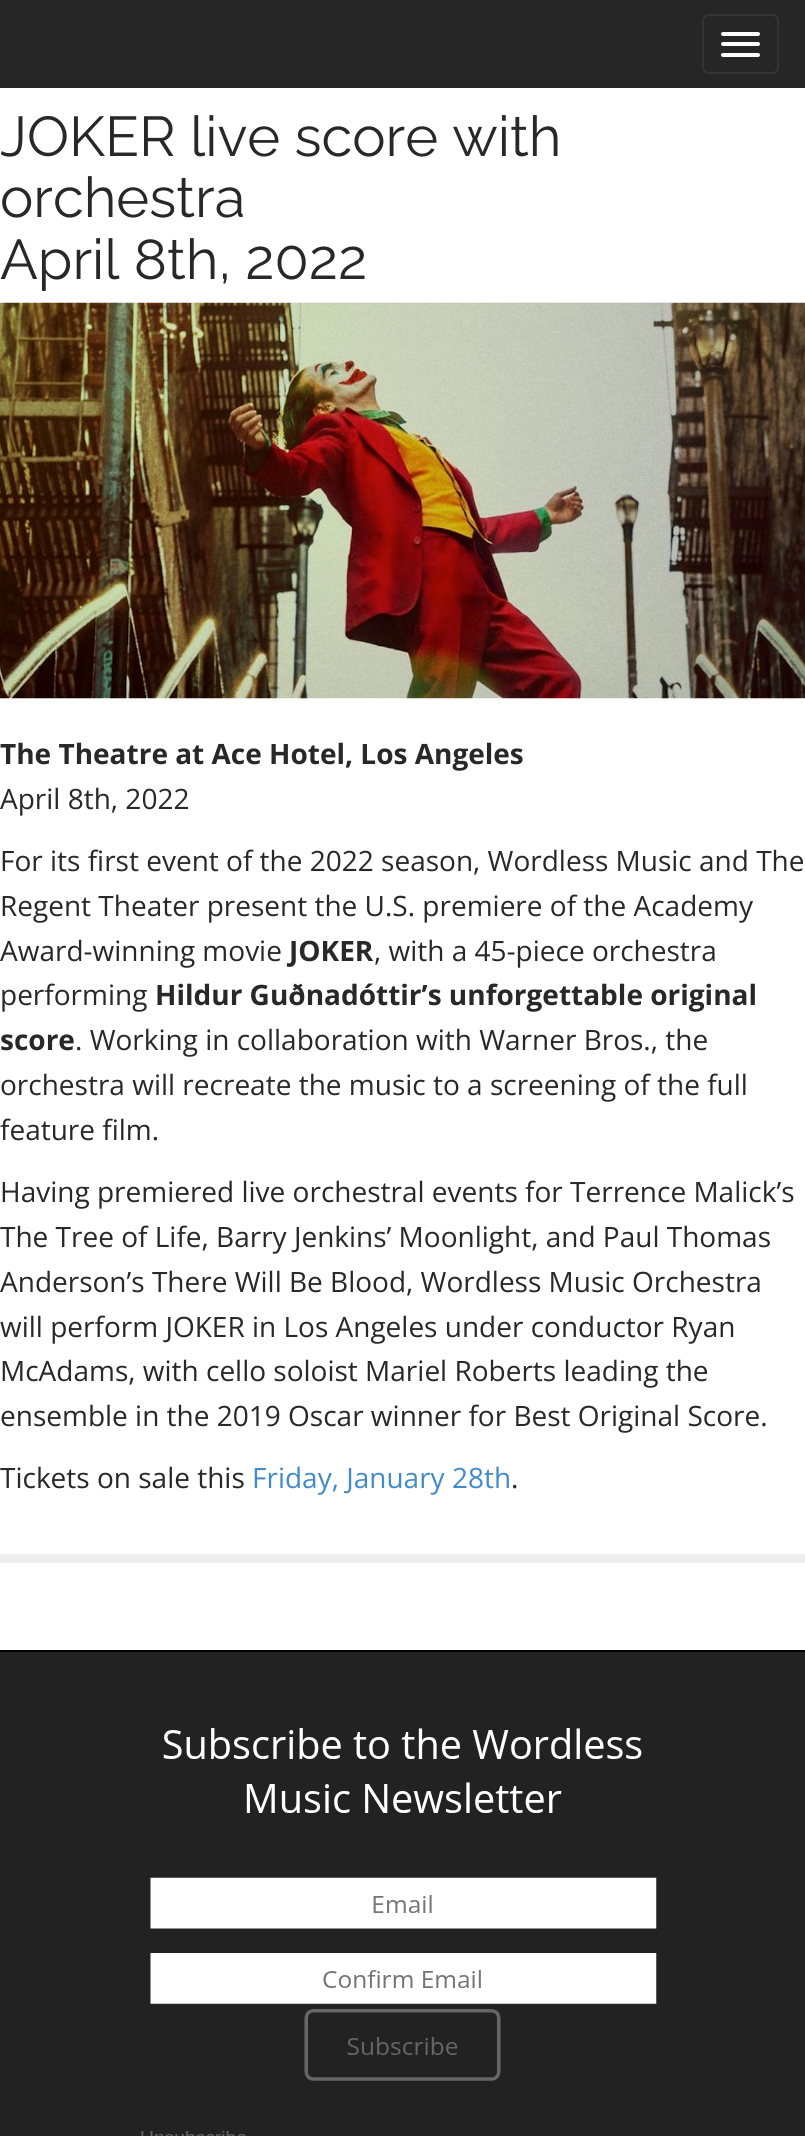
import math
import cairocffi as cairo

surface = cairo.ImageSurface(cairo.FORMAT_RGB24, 805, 2136)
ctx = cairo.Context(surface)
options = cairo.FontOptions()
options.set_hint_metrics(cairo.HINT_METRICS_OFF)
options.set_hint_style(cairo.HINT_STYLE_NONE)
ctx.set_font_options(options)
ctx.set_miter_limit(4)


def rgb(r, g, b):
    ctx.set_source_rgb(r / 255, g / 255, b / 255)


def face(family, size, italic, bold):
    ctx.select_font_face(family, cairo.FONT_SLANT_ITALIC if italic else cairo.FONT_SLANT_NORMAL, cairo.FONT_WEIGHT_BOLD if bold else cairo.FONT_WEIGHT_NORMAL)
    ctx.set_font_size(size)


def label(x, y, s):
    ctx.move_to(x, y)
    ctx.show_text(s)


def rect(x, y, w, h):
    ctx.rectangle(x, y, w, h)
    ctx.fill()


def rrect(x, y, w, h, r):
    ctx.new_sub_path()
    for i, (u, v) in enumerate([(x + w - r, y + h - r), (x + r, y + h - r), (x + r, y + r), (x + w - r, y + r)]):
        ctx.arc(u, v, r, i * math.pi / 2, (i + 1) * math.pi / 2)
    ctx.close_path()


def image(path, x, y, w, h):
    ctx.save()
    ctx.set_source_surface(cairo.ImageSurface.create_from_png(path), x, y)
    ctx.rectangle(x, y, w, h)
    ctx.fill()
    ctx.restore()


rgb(255, 255, 255)
ctx.paint()
rgb(38, 38, 38)
rect(0, 0, 805, 88)
rrect(703, 15, 75, 58, 6)
rgb(51, 51, 51)
ctx.stroke()
rgb(255, 255, 255)
rrect(721, 32, 39, 4, 2)
ctx.fill()
rrect(721, 42, 39, 4, 2)
ctx.fill()
rrect(721, 53, 39, 4, 2)
ctx.fill()
rgb(238, 238, 238)
rect(0, 1554, 805, 9)
face('Raleway Thin', 56, 0, 0)
rgb(40, 40, 40)
label(0, 156, 'JOKER live score with')
label(0, 217, 'orchestra')
label(0, 279, 'April 8th, 2022')
image('image0.png', 0, 302, 805, 397)
face('Open Sans', 28, 0, 1)
label(0, 764, 'The Theatre at Ace Hotel, Los Angeles')
face('Open Sans', 28, 0, 0)
label(0, 809, 'April 8th, 2022')
label(0, 871, 'For its first event of the 2022 season, Wordless Music and The')
label(0, 916, 'Regent Theater present the U.S. premiere of the Academy')
label(0, 961, 'Award-winning movie')
face('Open Sans', 28, 0, 1)
label(289, 961, 'JOKER')
face('Open Sans', 28, 0, 0)
label(374, 961, ', with a 45-piece orchestra')
label(0, 1005, 'performing')
face('Open Sans', 28, 0, 1)
label(155, 1005, 'Hildur Guðnadóttir’s unforgettable original')
label(0, 1050, 'score')
face('Open Sans', 28, 0, 0)
label(75, 1050, '. Working in collaboration with Warner Bros., the')
label(0, 1095, 'orchestra will recreate the music to a screening of the full')
label(0, 1140, 'feature film.')
label(0, 1202, 'Having premiered live orchestral events for Terrence Malick’s')
label(0, 1247, 'The Tree of Life, Barry Jenkins’ Moonlight, and Paul Thomas')
label(0, 1292, 'Anderson’s There Will Be Blood, Wordless Music Orchestra')
label(0, 1337, 'will perform JOKER in Los Angeles under conductor Ryan')
label(0, 1381, 'McAdams, with cello soloist Mariel Roberts leading the')
label(0, 1426, 'ensemble in the 2019 Oscar winner for Best Original Score.')
label(0, 1488, 'Tickets on sale this')
rgb(66, 139, 202)
label(252, 1488, 'Friday, January 28th')
rgb(40, 40, 40)
label(511, 1488, '.')
rgb(34, 34, 34)
rect(0, 1652, 805, 484)
rgb(0, 0, 0)
rect(0, 1650, 805, 2)
image('image1.png', 141, 1728, 516, 408)
surface.write_to_png('render.png')
